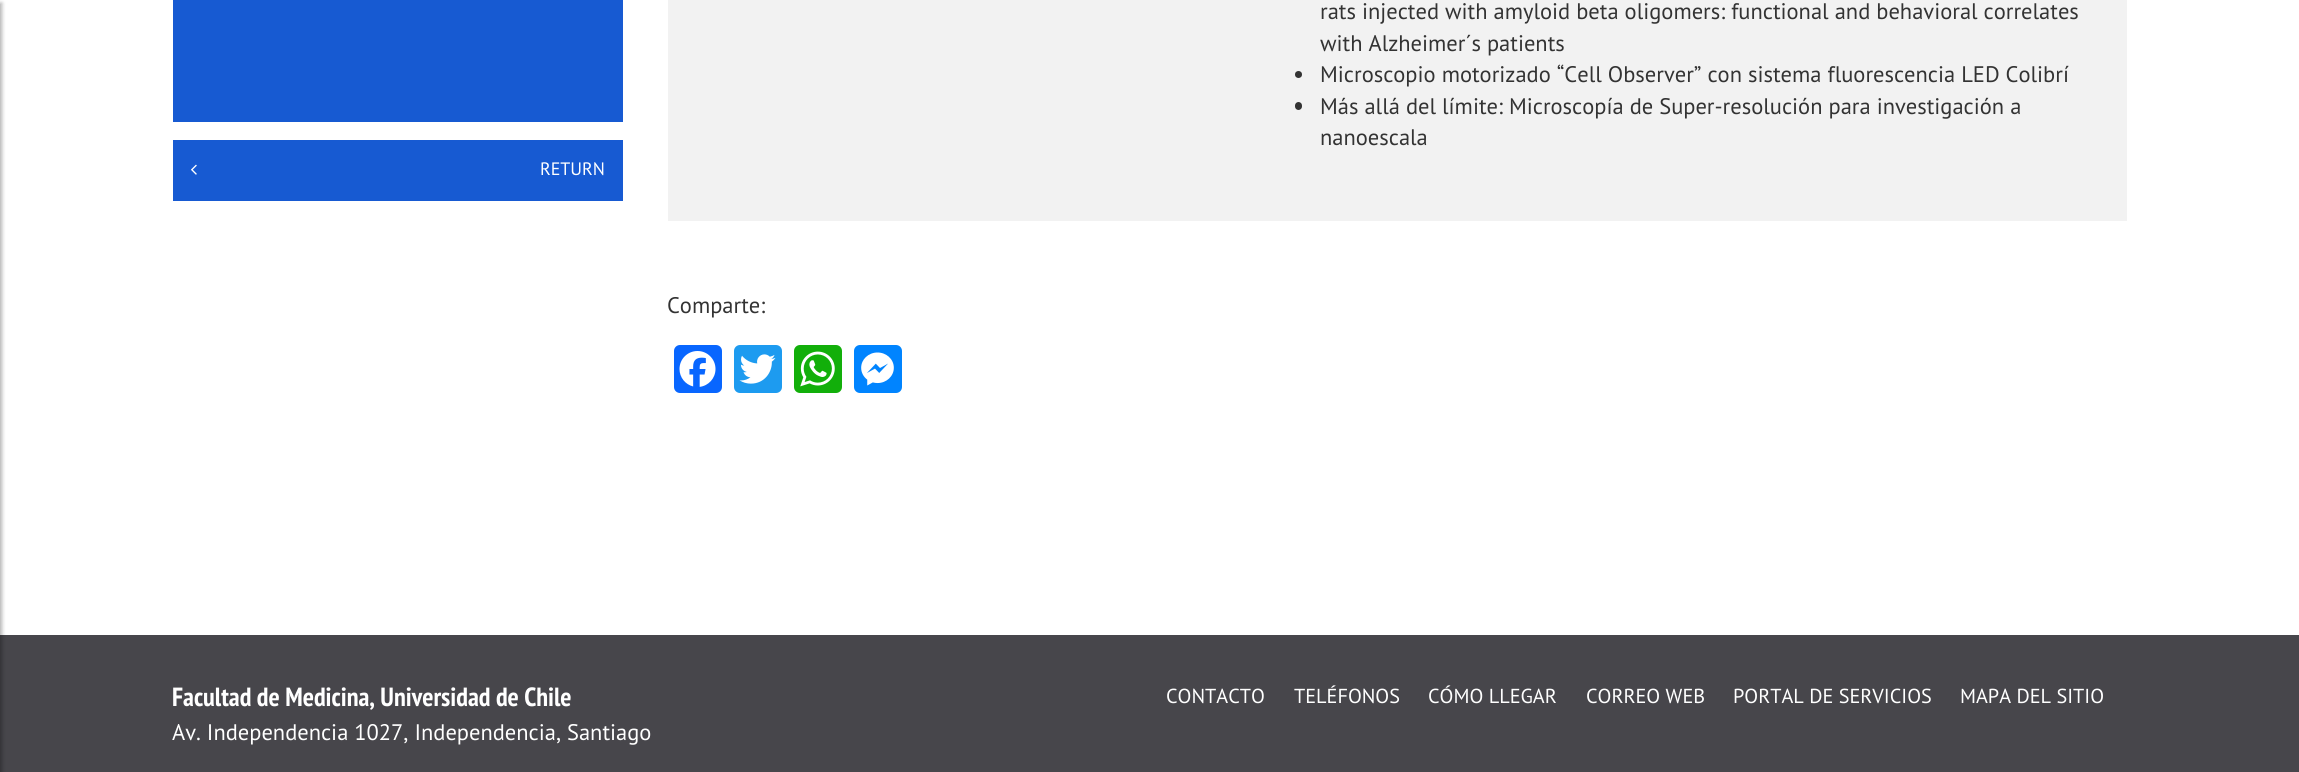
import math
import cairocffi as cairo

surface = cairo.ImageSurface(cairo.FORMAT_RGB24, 2299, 772)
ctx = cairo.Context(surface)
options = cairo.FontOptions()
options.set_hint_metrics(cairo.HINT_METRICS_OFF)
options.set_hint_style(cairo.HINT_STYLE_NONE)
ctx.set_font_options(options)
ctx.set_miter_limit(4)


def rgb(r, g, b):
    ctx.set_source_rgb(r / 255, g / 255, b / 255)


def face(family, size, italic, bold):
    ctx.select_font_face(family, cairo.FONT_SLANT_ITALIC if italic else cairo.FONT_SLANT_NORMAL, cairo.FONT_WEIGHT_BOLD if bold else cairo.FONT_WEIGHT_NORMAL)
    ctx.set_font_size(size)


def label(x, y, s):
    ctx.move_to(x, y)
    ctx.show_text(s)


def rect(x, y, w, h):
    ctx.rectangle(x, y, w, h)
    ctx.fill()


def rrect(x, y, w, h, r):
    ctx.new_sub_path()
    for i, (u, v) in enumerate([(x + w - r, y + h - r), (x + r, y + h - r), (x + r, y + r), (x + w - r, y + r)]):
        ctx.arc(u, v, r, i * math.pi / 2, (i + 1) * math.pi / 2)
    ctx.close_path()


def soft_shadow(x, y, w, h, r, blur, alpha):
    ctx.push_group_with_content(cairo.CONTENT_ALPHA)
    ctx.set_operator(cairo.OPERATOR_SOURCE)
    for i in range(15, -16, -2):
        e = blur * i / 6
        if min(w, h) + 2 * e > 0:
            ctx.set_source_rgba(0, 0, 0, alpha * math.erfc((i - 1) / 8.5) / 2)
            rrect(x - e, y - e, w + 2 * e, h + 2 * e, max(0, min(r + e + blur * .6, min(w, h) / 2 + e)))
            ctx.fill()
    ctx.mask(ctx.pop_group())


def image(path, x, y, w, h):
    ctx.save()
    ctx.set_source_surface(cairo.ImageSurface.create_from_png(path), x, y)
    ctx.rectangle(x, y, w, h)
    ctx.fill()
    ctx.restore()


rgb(255, 255, 255)
ctx.paint()
rgb(71, 70, 75)
rect(0, 635, 2299, 137)
rgb(0, 0, 0)
soft_shadow(-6, 3, 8, 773, 0, 2, 0.3)
rgb(242, 242, 242)
rect(668, 0, 1459, 221)
face('PT Sans', 22.5, 0, 0)
rgb(51, 51, 51)
label(1320, 19, 'rats injected with amyloid beta oligomers: functional and behavioral correlates')
label(1320, 51, 'with Alzheimer´s patients')
ctx.new_path()
ctx.arc(1298.5, 74.5, 3.5, 0, 2 * math.pi)
ctx.fill()
label(1320, 82, 'Microscopio motorizado “Cell Observer” con sistema fluorescencia LED Colibrí')
rrect(1295, 102, 7, 8, 3.5)
ctx.fill()
label(1320, 114, 'Más allá del límite: Microscopía de Super-resolución para investigación a')
label(1320, 145, 'nanoescala')
rgb(23, 90, 210)
rect(173, 0, 450, 122)
rect(173, 140, 450, 61)
image('image0.png', 191, 164, 6, 11)
face('PT Sans', 18, 0, 0)
rgb(255, 255, 255)
label(540, 175, 'RETURN')
face('PT Sans', 22.5, 0, 0)
rgb(51, 51, 51)
label(667, 313, 'Comparte:')
rgb(8, 102, 255)
rrect(674, 345, 48, 48, 6)
ctx.fill()
image('image1.png', 679, 351, 37, 36)
rgb(29, 155, 240)
rrect(734, 345, 48, 48, 6)
ctx.fill()
image('image2.png', 739, 354, 37, 30)
rgb(18, 175, 10)
rrect(794, 345, 48, 48, 6)
ctx.fill()
image('image3.png', 800, 351, 35, 36)
rgb(0, 132, 255)
rrect(854, 345, 48, 48, 6)
ctx.fill()
image('image4.png', 861, 352, 33, 34)
face('PT Sans Narrow', 26.3, 0, 1)
rgb(255, 255, 255)
label(172, 706, 'Facultad de Medicina, Universidad de Chile')
face('PT Sans', 22.5, 0, 0)
label(172, 740, 'Av. Independencia 1027, Independencia, Santiago')
face('PT Sans', 20.25, 0, 0)
label(1166, 703, 'CONTACTO')
label(1294, 703, 'TELÉFONOS')
label(1428, 703, 'CÓMO LLEGAR')
label(1586, 703, 'CORREO WEB')
label(1733, 703, 'PORTAL DE SERVICIOS')
label(1960, 703, 'MAPA DEL SITIO')
surface.write_to_png('render.png')
